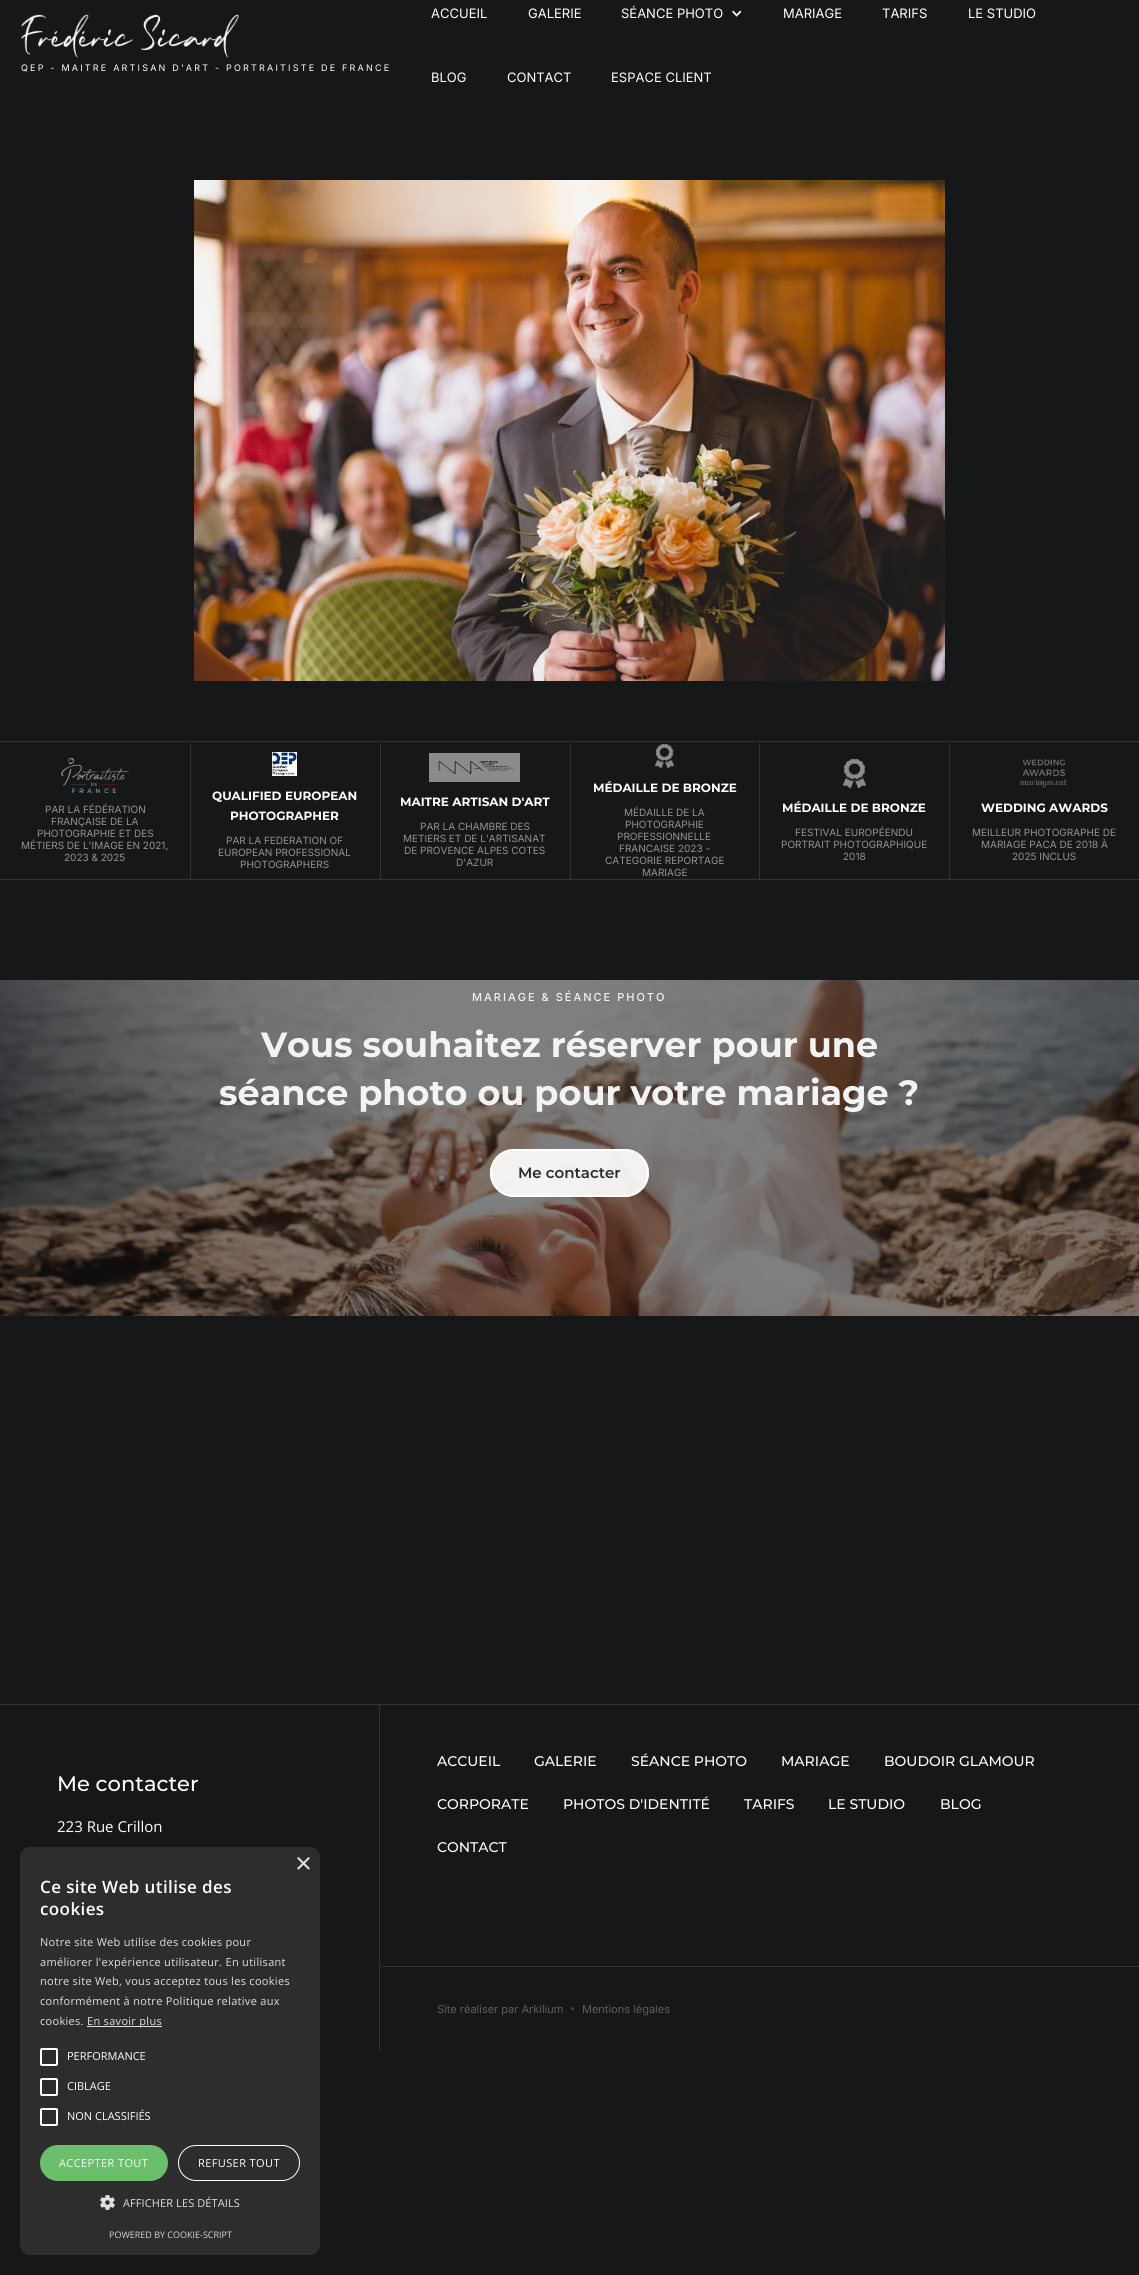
import math
import cairocffi as cairo

surface = cairo.ImageSurface(cairo.FORMAT_RGB24, 1139, 2275)
ctx = cairo.Context(surface)
options = cairo.FontOptions()
options.set_hint_metrics(cairo.HINT_METRICS_OFF)
options.set_hint_style(cairo.HINT_STYLE_NONE)
ctx.set_font_options(options)
ctx.set_miter_limit(4)


def rgb(r, g, b):
    ctx.set_source_rgb(r / 255, g / 255, b / 255)


def face(family, size, italic, bold):
    ctx.select_font_face(family, cairo.FONT_SLANT_ITALIC if italic else cairo.FONT_SLANT_NORMAL, cairo.FONT_WEIGHT_BOLD if bold else cairo.FONT_WEIGHT_NORMAL)
    ctx.set_font_size(size)


def label(x, y, s):
    ctx.move_to(x, y)
    ctx.show_text(s)


def tracked(x, y, s, letter, word):
    ctx.move_to(x, y)
    for ch in s:
        ctx.show_text(ch)
        ctx.rel_move_to(letter + word * (ch == ' '), 0)


def rect(x, y, w, h):
    ctx.rectangle(x, y, w, h)
    ctx.fill()


def rrect(x, y, w, h, r):
    ctx.new_sub_path()
    for i, (u, v) in enumerate([(x + w - r, y + h - r), (x + r, y + h - r), (x + r, y + r), (x + w - r, y + r)]):
        ctx.arc(u, v, r, i * math.pi / 2, (i + 1) * math.pi / 2)
    ctx.close_path()


def image(path, x, y, w, h):
    ctx.save()
    ctx.set_source_surface(cairo.ImageSurface.create_from_png(path), x, y)
    ctx.rectangle(x, y, w, h)
    ctx.fill()
    ctx.restore()


rgb(22, 23, 25)
ctx.paint()
image('image0.png', 21, 14, 218, 44)
face('Inter', 9, 0, 0)
rgb(255, 255, 255)
tracked(21, 71, 'QEP - MAITRE ARTISAN D\'ART - PORTRAITISTE DE FRANCE', 2.2, 0)
face('Inter', 13, 0, 0)
label(431, 18, 'ACCUEIL')
label(528, 18, 'GALERIE')
label(621, 18, 'SÉANCE PHOTO')
image('image1.png', 732, 10, 10, 7)
label(783, 18, 'MARIAGE')
label(882, 18, 'TARIFS')
label(968, 18, 'LE STUDIO')
label(431, 82, 'BLOG')
label(507, 82, 'CONTACT')
label(611, 82, 'ESPACE CLIENT')
image('image2.png', 194, 180, 751, 501)
rgb(50, 51, 53)
rect(0, 741, 1139, 1)
rect(0, 879, 1139, 1)
ctx.save()
ctx.rectangle(0, 742, 1139, 137)
ctx.clip()
ctx.new_path()
ctx.move_to(1, 879)
ctx.line_to(1, 880)
ctx.line_to(191, 880)
ctx.line_to(191, 743)
ctx.line_to(190, 743)
ctx.line_to(190, 879)
ctx.close_path()
ctx.fill()
ctx.restore()
image('image3.png', 61, 758, 68, 35)
face('Inter', 10, 0, 0)
rgb(145, 146, 147)
label(45, 813, 'PAR LA FÉDÉRATION')
label(51, 825, 'FRANÇAISE DE LA')
label(37, 837, 'PHOTOGRAPHIE ET DES')
label(21, 849, 'MÉTIERS DE L\'IMAGE EN 2021,')
label(64, 861, '2023 & 2025')
ctx.save()
ctx.rectangle(0, 742, 1139, 137)
ctx.clip()
rgb(50, 51, 53)
ctx.new_path()
ctx.move_to(191, 879)
ctx.line_to(191, 880)
ctx.line_to(381, 880)
ctx.line_to(381, 743)
ctx.line_to(380, 743)
ctx.line_to(380, 879)
ctx.close_path()
ctx.fill()
ctx.restore()
image('image4.png', 272, 752, 25, 24)
face('Montserrat', 12, 0, 1)
rgb(255, 255, 255)
label(212, 800, 'QUALIFIED EUROPEAN')
label(230, 820, 'PHOTOGRAPHER')
face('Inter', 10, 0, 0)
rgb(145, 146, 147)
label(226, 844, 'PAR LA FEDERATION OF')
label(218, 856, 'EUROPEAN PROFESSIONAL')
label(240, 868, 'PHOTOGRAPHERS')
ctx.save()
ctx.rectangle(0, 742, 1139, 137)
ctx.clip()
rgb(50, 51, 53)
ctx.new_path()
ctx.move_to(381, 879)
ctx.line_to(381, 880)
ctx.line_to(571, 880)
ctx.line_to(571, 743)
ctx.line_to(570, 743)
ctx.line_to(570, 879)
ctx.close_path()
ctx.fill()
ctx.restore()
image('image5.png', 429, 753, 91, 29)
face('Montserrat', 12, 0, 1)
rgb(255, 255, 255)
label(400, 806, 'MAITRE ARTISAN D\'ART')
face('Inter', 10, 0, 0)
rgb(145, 146, 147)
label(420, 830, 'PAR LA CHAMBRE DES')
label(403, 842, 'METIERS ET DE L\'ARTISANAT')
label(404, 854, 'DE PROVENCE ALPES COTES')
label(456, 866, 'D\'AZUR')
ctx.save()
ctx.rectangle(0, 742, 1139, 137)
ctx.clip()
rgb(50, 51, 53)
ctx.new_path()
ctx.move_to(571, 879)
ctx.line_to(571, 880)
ctx.line_to(760, 880)
ctx.line_to(760, 743)
ctx.line_to(759, 743)
ctx.line_to(759, 879)
ctx.close_path()
ctx.fill()
ctx.restore()
image('image6.png', 655, 744, 19, 24)
face('Montserrat', 12, 0, 1)
rgb(255, 255, 255)
label(593, 792, 'MÉDAILLE DE BRONZE')
face('Inter', 10, 0, 0)
rgb(145, 146, 147)
label(624, 816, 'MÉDAILLE DE LA')
label(625, 828, 'PHOTOGRAPHIE')
label(617, 840, 'PROFESSIONNELLE')
label(619, 852, 'FRANCAISE 2023 -')
label(605, 864, 'CATEGORIE REPORTAGE')
label(642, 876, 'MARIAGE')
ctx.save()
ctx.rectangle(0, 742, 1139, 137)
ctx.clip()
rgb(50, 51, 53)
ctx.new_path()
ctx.move_to(760, 879)
ctx.line_to(760, 880)
ctx.line_to(950, 880)
ctx.line_to(950, 743)
ctx.line_to(949, 743)
ctx.line_to(949, 879)
ctx.close_path()
ctx.fill()
ctx.restore()
image('image7.png', 843, 759, 23, 29)
face('Montserrat', 12, 0, 1)
rgb(255, 255, 255)
label(782, 812, 'MÉDAILLE DE BRONZE')
face('Inter', 10, 0, 0)
rgb(145, 146, 147)
label(795, 836, 'FESTIVAL EUROPÉENDU')
label(781, 848, 'PORTRAIT PHOTOGRAPHIQUE')
label(843, 860, '2018')
image('image8.png', 1020, 759, 48, 29)
face('Montserrat', 12, 0, 1)
rgb(255, 255, 255)
label(981, 812, 'WEDDING AWARDS')
face('Inter', 10, 0, 0)
rgb(145, 146, 147)
label(972, 836, 'MEILLEUR PHOTOGRAPHE DE')
label(981, 848, 'MARIAGE PACA DE 2018 À')
label(1012, 860, '2025 INCLUS')
image('image9.png', 0, 980, 1139, 336)
face('Inter Medium', 11, 0, 0)
rgb(243, 243, 243)
tracked(472, 1001, 'MARIAGE & SÉANCE PHOTO', 2, 0)
face('Montserrat', 35, 0, 1)
label(261, 1057, 'Vous souhaitez réserver pour une')
label(219, 1105, 'séance photo ou pour votre mariage ?')
ctx.set_source_rgba(1, 1, 1, 0.91)
rrect(490, 1149, 159, 48, 24)
ctx.fill()
rrect(491, 1150, 157, 46, 23)
ctx.stroke()
face('Montserrat SemiBold', 15, 0, 0)
rgb(42, 43, 45)
label(518, 1178, 'Me contacter')
rgb(50, 51, 53)
rect(0, 1704, 1139, 1)
rect(379, 1705, 1, 346)
face('Montserrat Medium', 21, 0, 0)
rgb(255, 255, 255)
label(57, 1791, 'Me contacter')
face('Open Sans', 15, 0, 0)
label(57, 1832, '223 Rue Crillon')
rgb(50, 51, 53)
rect(380, 1966, 759, 1)
face('Montserrat Medium', 14, 0, 0)
rgb(255, 255, 255)
label(437, 1766, 'ACCUEIL')
label(534, 1766, 'GALERIE')
label(631, 1766, 'SÉANCE PHOTO')
label(781, 1766, 'MARIAGE')
label(884, 1766, 'BOUDOIR GLAMOUR')
label(437, 1809, 'CORPORATE')
label(563, 1809, 'PHOTOS D\'IDENTITÉ')
label(744, 1809, 'TARIFS')
label(828, 1809, 'LE STUDIO')
label(940, 1809, 'BLOG')
label(437, 1852, 'CONTACT')
face('Inter', 11, 0, 0)
rgb(92, 93, 94)
label(437, 2013, 'Site réaliser par Arkilium')
rgb(69, 69, 71)
ctx.new_path()
ctx.arc(572.5, 2008.5, 1.5, 0, 2 * math.pi)
ctx.fill()
rgb(92, 93, 94)
label(582, 2013, 'Mentions légales')
rgb(45, 45, 45)
rrect(20, 1847, 300, 408, 10)
ctx.fill()
face('Liberation Sans', 29, 0, 0)
rgb(224, 224, 224)
label(295, 1873, '×')
face('Open Sans SemiBold', 17, 0, 0)
rgb(255, 255, 255)
tracked(40, 1893, 'Ce site Web utilise des', 0.4, 0)
tracked(40, 1915, 'cookies', 0.4, 0)
face('Open Sans', 11, 0, 0)
rgb(224, 224, 224)
tracked(40, 1946, 'Notre site Web utilise des cookies pour', 0.3, 0)
tracked(40, 1966, 'améliorer l\'expérience utilisateur. En utilisant', 0.3, 0)
tracked(40, 1985, 'notre site Web, vous acceptez tous les cookies', 0.3, 0)
tracked(40, 2005, 'conformément à notre Politique relative aux', 0.3, 0)
tracked(40, 2025, 'cookies.', 0.3, 0)
rect(87, 2026, 75, 1)
tracked(87, 2025, 'En savoir plus', 0.3, 0)
rrect(41, 2049, 16, 16, 1)
rgb(255, 255, 255)
ctx.stroke()
label(67, 2060, 'PERFORMANCE')
rrect(41, 2079, 16, 16, 1)
ctx.stroke()
label(67, 2090, 'CIBLAGE')
rrect(41, 2109, 16, 16, 1)
ctx.stroke()
label(67, 2120, 'NON CLASSIFIÉS')
rgb(107, 190, 107)
rrect(40, 2145, 128, 36, 18)
ctx.fill()
rgb(255, 255, 255)
tracked(59, 2167, 'ACCEPTER TOUT', 0.4, 0)
rrect(178.5, 2145.5, 121, 35, 17.5)
ctx.set_line_width(1)
ctx.stroke()
tracked(198, 2167, 'REFUSER TOUT', 0.4, 0)
image('image10.png', 100, 2195, 15, 15)
rgb(224, 224, 224)
tracked(123, 2207, 'AFFICHER LES DÉTAILS', 0.1, 0)
face('Open Sans', 9, 0, 0)
rgb(213, 213, 213)
label(109, 2238, 'POWERED BY COOKIE-SCRIPT')
surface.write_to_png('render.png')
